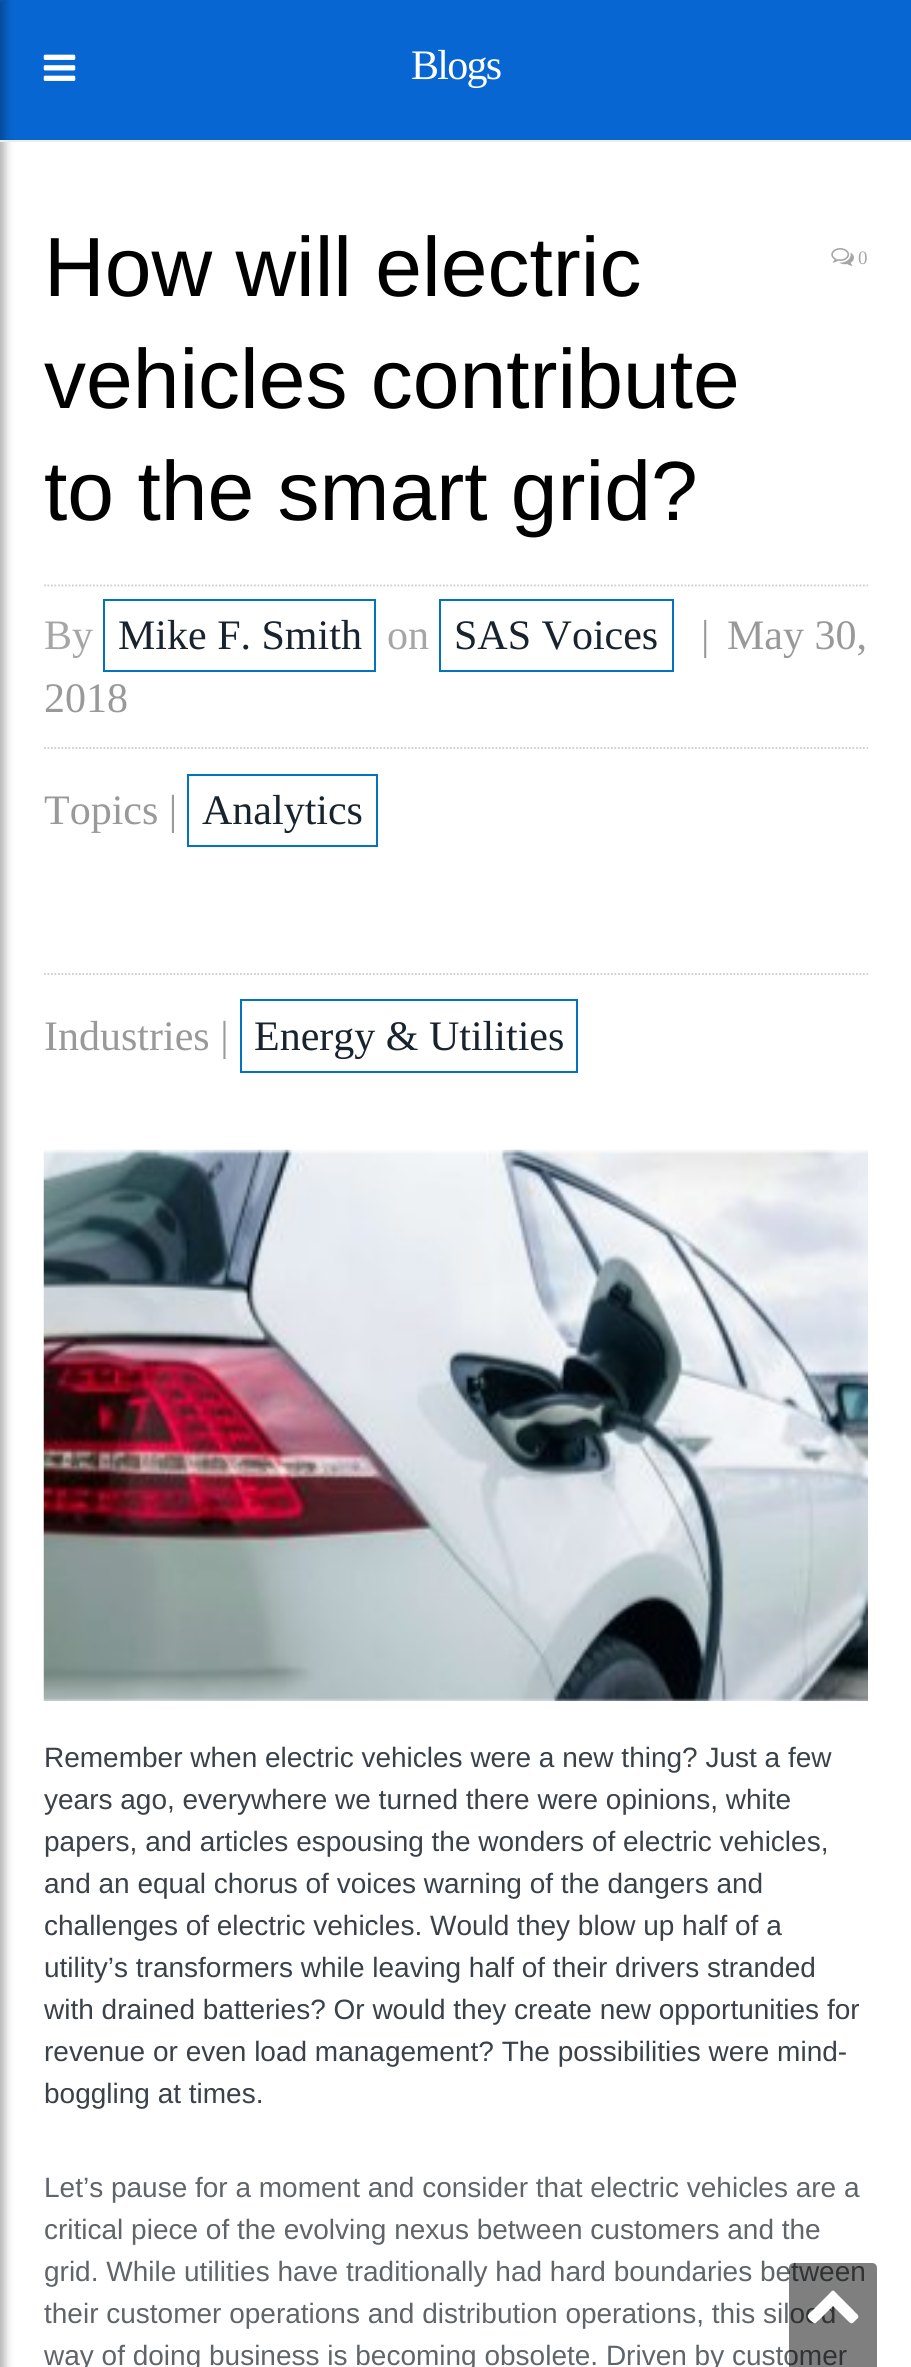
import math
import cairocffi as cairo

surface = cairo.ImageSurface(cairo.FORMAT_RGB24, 911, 2367)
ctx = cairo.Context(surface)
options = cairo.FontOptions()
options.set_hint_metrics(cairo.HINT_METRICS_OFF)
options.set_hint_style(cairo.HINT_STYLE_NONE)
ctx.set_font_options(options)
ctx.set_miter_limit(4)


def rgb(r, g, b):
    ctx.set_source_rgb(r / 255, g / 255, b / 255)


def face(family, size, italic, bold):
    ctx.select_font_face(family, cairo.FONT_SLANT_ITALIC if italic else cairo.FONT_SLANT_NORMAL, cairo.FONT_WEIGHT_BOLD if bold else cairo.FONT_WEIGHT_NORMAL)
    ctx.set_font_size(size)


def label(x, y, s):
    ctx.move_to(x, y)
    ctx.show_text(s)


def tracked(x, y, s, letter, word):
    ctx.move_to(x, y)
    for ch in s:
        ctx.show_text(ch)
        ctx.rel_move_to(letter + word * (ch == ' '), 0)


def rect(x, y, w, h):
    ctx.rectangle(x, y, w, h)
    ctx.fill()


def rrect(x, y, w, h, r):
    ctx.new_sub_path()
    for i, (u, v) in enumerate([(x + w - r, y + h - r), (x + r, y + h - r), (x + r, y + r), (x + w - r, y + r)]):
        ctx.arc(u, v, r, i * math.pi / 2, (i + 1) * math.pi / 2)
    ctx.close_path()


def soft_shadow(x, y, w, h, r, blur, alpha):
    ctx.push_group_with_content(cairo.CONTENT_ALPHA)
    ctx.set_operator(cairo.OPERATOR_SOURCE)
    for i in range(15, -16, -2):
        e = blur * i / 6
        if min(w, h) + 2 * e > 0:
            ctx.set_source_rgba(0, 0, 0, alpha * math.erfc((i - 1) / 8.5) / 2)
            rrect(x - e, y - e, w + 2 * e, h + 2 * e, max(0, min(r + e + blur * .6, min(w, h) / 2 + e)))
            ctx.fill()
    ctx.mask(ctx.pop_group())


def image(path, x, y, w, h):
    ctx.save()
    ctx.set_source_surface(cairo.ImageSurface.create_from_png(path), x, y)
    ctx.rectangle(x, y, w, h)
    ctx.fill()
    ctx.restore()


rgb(255, 255, 255)
ctx.paint()
rgb(7, 102, 209)
rect(0, 0, 911, 140)
rgb(0, 0, 0)
soft_shadow(-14, 0, 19, 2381, 0, 4.5, 0.3)
rgb(238, 238, 238)
rect(0, 140, 911, 2)
image('image0.png', 43, 54, 33, 27)
face('Liberation Serif', 42, 0, 0)
rgb(255, 255, 255)
tracked(411, 79, 'Blogs', -1.75, 0)
face('Liberation Sans', 84, 0, 0)
rgb(0, 0, 0)
label(44, 296, 'How will electric')
label(44, 408, 'vehicles contribute')
label(44, 520, 'to the smart grid?')
image('image1.png', 831, 248, 23, 18)
face('Liberation Serif', 19, 0, 0)
rgb(166, 166, 166)
label(858, 264, '0')
ctx.new_path()
ctx.move_to(44, 585.5)
ctx.line_to(868, 585.5)
rgb(204, 204, 204)
ctx.set_line_width(1.8)
ctx.set_dash([1.75, 1.75])
ctx.stroke()
face('Liberation Serif', 42, 0, 0)
rgb(166, 166, 166)
label(44, 649, 'By')
ctx.rectangle(104, 600, 271, 71)
rgb(0, 116, 190)
ctx.set_line_width(2)
ctx.set_dash([])
ctx.stroke()
rgb(25, 35, 45)
label(118, 649, 'Mike F. Smith')
rgb(166, 166, 166)
label(387, 649, 'on')
ctx.rectangle(440, 600, 233, 71)
rgb(0, 116, 190)
ctx.stroke()
rgb(25, 35, 45)
label(454, 649, 'SAS Voices')
rgb(153, 153, 153)
label(701, 649, '|')
label(727, 649, 'May 30,')
label(44, 712, '2018')
ctx.new_path()
ctx.move_to(44, 748)
ctx.line_to(868, 748)
rgb(204, 204, 204)
ctx.set_line_width(1.8)
ctx.set_dash([1.75, 1.75])
ctx.stroke()
rgb(153, 153, 153)
label(44, 824, 'Topics |')
ctx.rectangle(188, 775, 189, 71)
rgb(0, 116, 190)
ctx.set_line_width(2)
ctx.set_dash([])
ctx.stroke()
rgb(25, 35, 45)
label(202, 824, 'Analytics')
ctx.new_path()
ctx.move_to(44, 974)
ctx.line_to(868, 974)
rgb(204, 204, 204)
ctx.set_line_width(1.8)
ctx.set_dash([1.75, 1.75])
ctx.stroke()
rgb(153, 153, 153)
label(44, 1050, 'Industries |')
ctx.rectangle(241, 1000, 336, 72)
rgb(0, 116, 190)
ctx.set_line_width(2)
ctx.set_dash([])
ctx.stroke()
rgb(25, 35, 45)
label(254, 1050, 'Energy & Utilities')
image('image2.png', 43, 1149, 825, 552)
face('Liberation Sans', 28, 0, 0)
rgb(58, 65, 73)
label(44, 1767, 'Remember when electric vehicles were a new thing? Just a few')
label(44, 1809, 'years ago, everywhere we turned there were opinions, white')
label(44, 1851, 'papers, and articles espousing the wonders of electric vehicles,')
label(44, 1893, 'and an equal chorus of voices warning of the dangers and')
label(44, 1935, 'challenges of electric vehicles. Would they blow up half of a')
label(44, 1977, 'utility’s transformers while leaving half of their drivers stranded')
label(44, 2019, 'with drained batteries? Or would they create new opportunities for')
label(44, 2061, 'revenue or even load management? The possibilities were mind-')
label(44, 2103, 'boggling at times.')
rgb(96, 101, 105)
label(44, 2197, 'Let’s pause for a moment and consider that electric vehicles are a')
label(44, 2239, 'critical piece of the evolving nexus between customers and the')
label(44, 2281, 'grid. While utilities have traditionally had hard boundaries between')
label(44, 2323, 'their customer operations and distribution operations, this siloed')
label(44, 2365, 'way of doing business is becoming obsolete. Driven by customer')
ctx.set_source_rgba(0, 0, 0, 0.5)
ctx.new_path()
ctx.move_to(794, 2263)
ctx.line_to(872, 2263)
ctx.curve_to(875, 2263, 877, 2265, 877, 2268)
ctx.line_to(877, 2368)
ctx.line_to(789, 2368)
ctx.line_to(789, 2268)
ctx.curve_to(789, 2265, 791, 2263, 794, 2263)
ctx.close_path()
ctx.fill()
rgb(255, 255, 255)
ctx.new_path()
ctx.move_to(858, 2318)
ctx.curve_to(852, 2323, 853, 2326, 847, 2320)
ctx.line_to(833, 2306)
ctx.line_to(819, 2320)
ctx.curve_to(814, 2325, 815, 2324, 809, 2319)
ctx.curve_to(806, 2315, 809, 2314, 812, 2311)
ctx.line_to(828, 2295)
ctx.curve_to(834, 2289, 832, 2289, 838, 2295)
ctx.line_to(854, 2311)
ctx.curve_to(854, 2312, 860, 2315, 858, 2318)
ctx.close_path()
ctx.fill()
surface.write_to_png('render.png')
